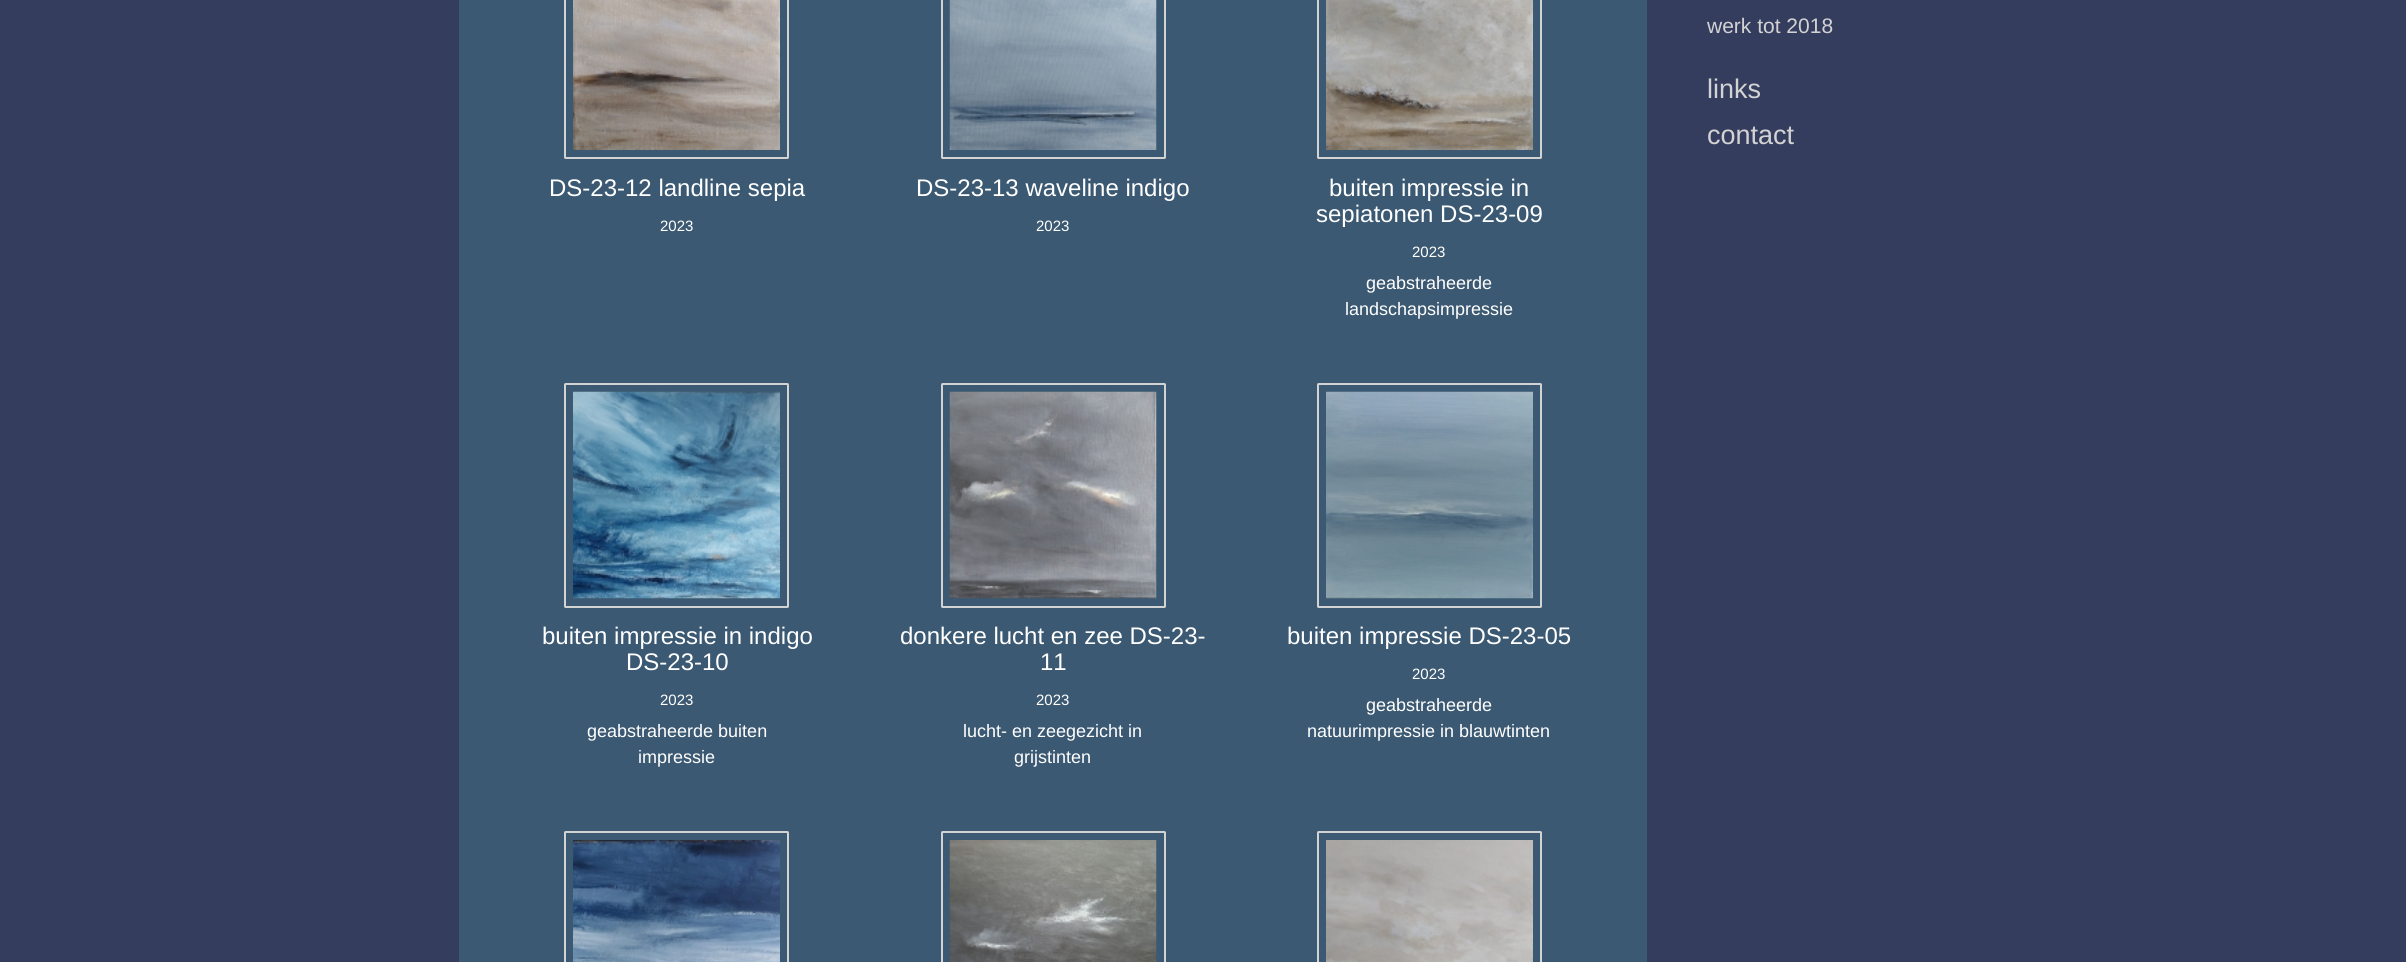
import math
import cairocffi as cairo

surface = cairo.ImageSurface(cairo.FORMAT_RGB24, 2406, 962)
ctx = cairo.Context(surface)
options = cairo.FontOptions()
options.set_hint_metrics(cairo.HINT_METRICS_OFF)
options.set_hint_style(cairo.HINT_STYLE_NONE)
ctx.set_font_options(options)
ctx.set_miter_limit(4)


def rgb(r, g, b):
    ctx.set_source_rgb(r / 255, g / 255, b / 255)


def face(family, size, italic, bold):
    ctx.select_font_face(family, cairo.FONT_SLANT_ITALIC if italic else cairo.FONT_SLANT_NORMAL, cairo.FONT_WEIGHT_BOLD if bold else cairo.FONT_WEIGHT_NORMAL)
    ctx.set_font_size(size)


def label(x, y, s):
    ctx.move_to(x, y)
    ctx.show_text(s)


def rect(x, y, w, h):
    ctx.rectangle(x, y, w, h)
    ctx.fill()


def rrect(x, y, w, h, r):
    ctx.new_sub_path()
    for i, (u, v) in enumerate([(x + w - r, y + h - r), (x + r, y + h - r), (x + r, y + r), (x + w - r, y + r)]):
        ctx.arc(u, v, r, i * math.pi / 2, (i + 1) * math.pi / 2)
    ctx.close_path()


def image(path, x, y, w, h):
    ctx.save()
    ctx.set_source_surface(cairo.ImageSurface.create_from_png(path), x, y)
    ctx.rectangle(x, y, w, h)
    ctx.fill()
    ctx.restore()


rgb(53, 61, 95)
ctx.paint()
rgb(59, 89, 114)
rect(459, 0, 1188, 962)
face('Liberation Sans', 21, 0, 0)
rgb(211, 211, 211)
label(1707, 33, 'werk tot 2018')
face('Liberation Sans', 27, 0, 0)
label(1707, 98, 'links')
label(1707, 144, 'contact')
rrect(565, -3, 223, 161, 0.5)
ctx.stroke()
image('image0.png', 573, 0, 207, 150)
face('Liberation Sans', 24, 0, 0)
rgb(255, 255, 255)
label(549, 196, 'DS-23-12 landline sepia')
face('Liberation Sans', 15, 0, 0)
label(660, 231, '2023')
rrect(942, -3, 223, 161, 0.5)
rgb(211, 211, 211)
ctx.stroke()
image('image1.png', 949, 0, 208, 150)
face('Liberation Sans', 24, 0, 0)
rgb(255, 255, 255)
label(916, 196, 'DS-23-13 waveline indigo')
face('Liberation Sans', 15, 0, 0)
label(1036, 231, '2023')
rrect(1318, -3, 223, 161, 0.5)
rgb(211, 211, 211)
ctx.stroke()
image('image2.png', 1326, 0, 207, 150)
face('Liberation Sans', 24, 0, 0)
rgb(255, 255, 255)
label(1329, 196, 'buiten impressie in')
label(1316, 222, 'sepiatonen DS-23-09')
face('Liberation Sans', 15, 0, 0)
label(1412, 257, '2023')
face('Liberation Sans', 18, 0, 0)
label(1366, 289, 'geabstraheerde')
label(1345, 315, 'landschapsimpressie')
rrect(565, 384, 223, 223, 0.5)
rgb(211, 211, 211)
ctx.stroke()
image('image3.png', 573, 391, 207, 208)
face('Liberation Sans', 24, 0, 0)
rgb(255, 255, 255)
label(542, 644, 'buiten impressie in indigo')
label(626, 670, 'DS-23-10')
face('Liberation Sans', 15, 0, 0)
label(660, 705, '2023')
face('Liberation Sans', 18, 0, 0)
label(587, 737, 'geabstraheerde buiten')
label(638, 763, 'impressie')
rrect(942, 384, 223, 223, 0.5)
rgb(211, 211, 211)
ctx.stroke()
image('image4.png', 949, 391, 208, 208)
face('Liberation Sans', 24, 0, 0)
rgb(255, 255, 255)
label(900, 644, 'donkere lucht en zee DS-23-')
label(1040, 670, '11')
face('Liberation Sans', 15, 0, 0)
label(1036, 705, '2023')
face('Liberation Sans', 18, 0, 0)
label(963, 737, 'lucht- en zeegezicht in')
label(1014, 763, 'grijstinten')
rrect(1318, 384, 223, 223, 0.5)
rgb(211, 211, 211)
ctx.stroke()
image('image5.png', 1326, 391, 207, 208)
face('Liberation Sans', 24, 0, 0)
rgb(255, 255, 255)
label(1287, 644, 'buiten impressie DS-23-05')
face('Liberation Sans', 15, 0, 0)
label(1412, 679, '2023')
face('Liberation Sans', 18, 0, 0)
label(1366, 711, 'geabstraheerde')
label(1307, 737, 'natuurimpressie in blauwtinten')
rrect(565, 832, 223, 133, 0.5)
rgb(211, 211, 211)
ctx.stroke()
image('image6.png', 573, 840, 207, 122)
rrect(942, 832, 223, 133, 0.5)
ctx.stroke()
image('image7.png', 949, 840, 208, 122)
rrect(1318, 832, 223, 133, 0.5)
ctx.stroke()
image('image8.png', 1326, 840, 207, 122)
surface.write_to_png('render.png')
